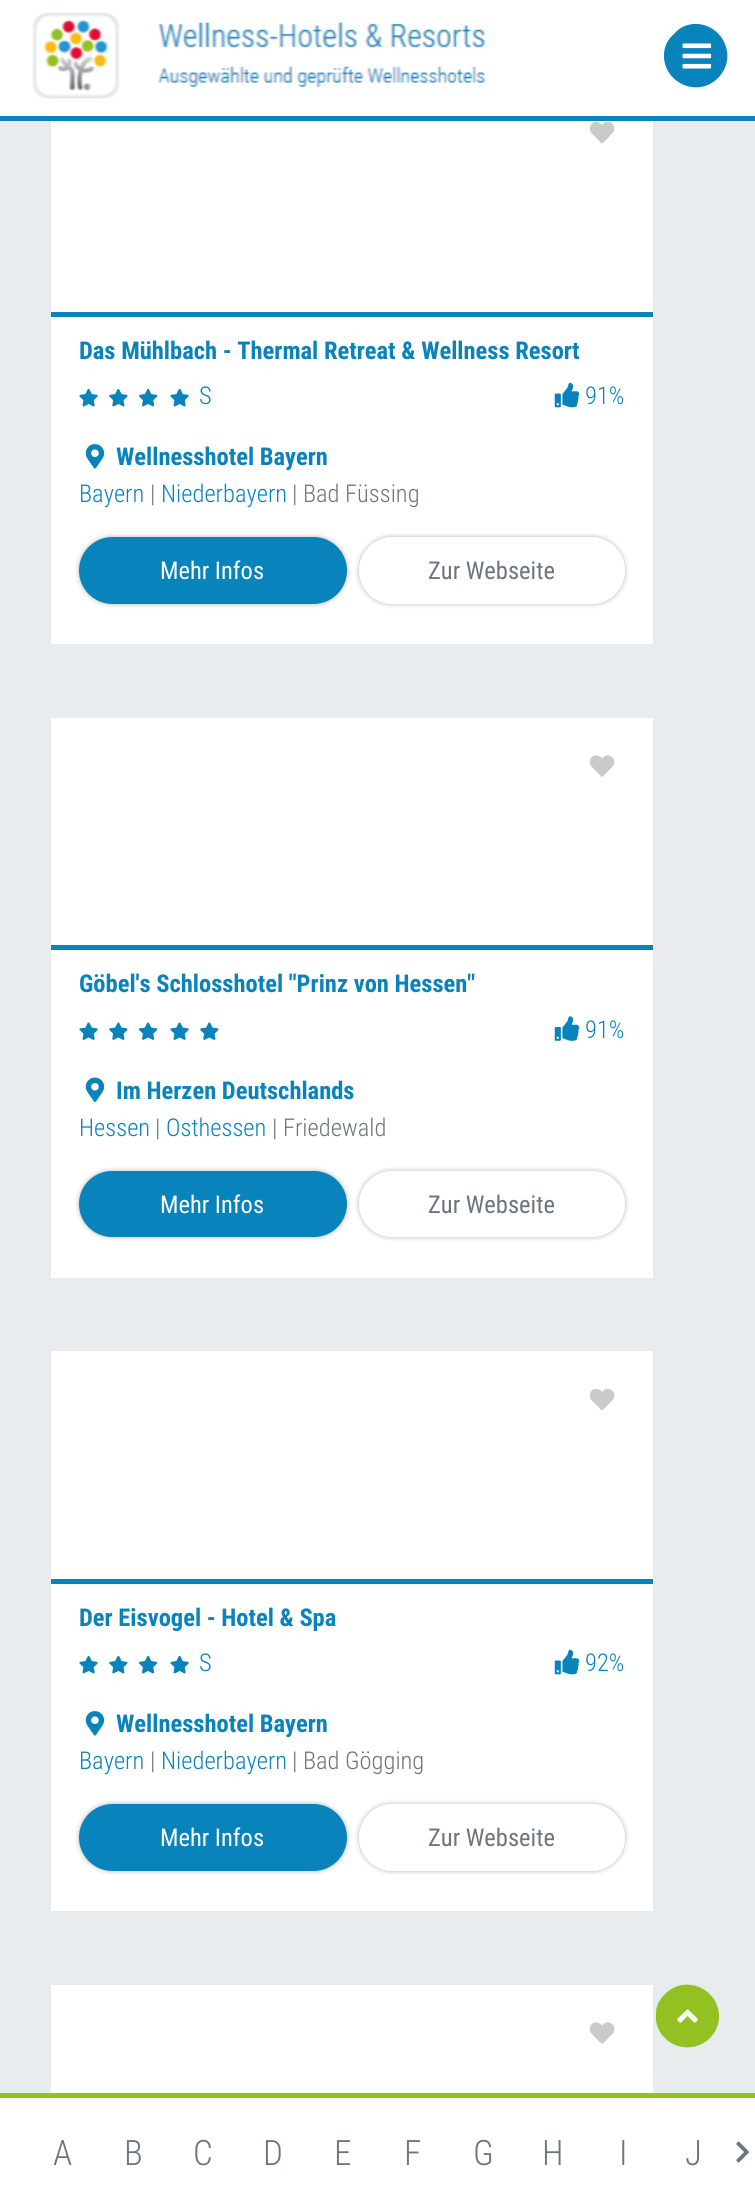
import math
import cairocffi as cairo

surface = cairo.ImageSurface(cairo.FORMAT_RGB24, 755, 2197)
ctx = cairo.Context(surface)
options = cairo.FontOptions()
options.set_hint_metrics(cairo.HINT_METRICS_OFF)
options.set_hint_style(cairo.HINT_STYLE_NONE)
ctx.set_font_options(options)
ctx.set_miter_limit(4)


def rgb(r, g, b):
    ctx.set_source_rgb(r / 255, g / 255, b / 255)


def face(family, size, italic, bold):
    ctx.select_font_face(family, cairo.FONT_SLANT_ITALIC if italic else cairo.FONT_SLANT_NORMAL, cairo.FONT_WEIGHT_BOLD if bold else cairo.FONT_WEIGHT_NORMAL)
    ctx.set_font_size(size)


def label(x, y, s):
    ctx.move_to(x, y)
    ctx.show_text(s)


def rect(x, y, w, h):
    ctx.rectangle(x, y, w, h)
    ctx.fill()


def rrect(x, y, w, h, r):
    ctx.new_sub_path()
    for i, (u, v) in enumerate([(x + w - r, y + h - r), (x + r, y + h - r), (x + r, y + r), (x + w - r, y + r)]):
        ctx.arc(u, v, r, i * math.pi / 2, (i + 1) * math.pi / 2)
    ctx.close_path()


def soft_shadow(x, y, w, h, r, blur, alpha):
    ctx.push_group_with_content(cairo.CONTENT_ALPHA)
    ctx.set_operator(cairo.OPERATOR_SOURCE)
    for i in range(15, -16, -2):
        e = blur * i / 6
        if min(w, h) + 2 * e > 0:
            ctx.set_source_rgba(0, 0, 0, alpha * math.erfc((i - 1) / 8.5) / 2)
            rrect(x - e, y - e, w + 2 * e, h + 2 * e, max(0, min(r + e + blur * .6, min(w, h) / 2 + e)))
            ctx.fill()
    ctx.mask(ctx.pop_group())


def image(path, x, y, w, h):
    ctx.save()
    ctx.set_source_surface(cairo.ImageSurface.create_from_png(path), x, y)
    ctx.rectangle(x, y, w, h)
    ctx.fill()
    ctx.restore()


rgb(233, 236, 239)
ctx.paint()
rgb(255, 255, 255)
rect(0, 0, 755, 116)
rgb(8, 131, 187)
rect(0, 116, 755, 5)
image('image0.png', 32, 12, 454, 87)
ctx.new_path()
ctx.move_to(674, 34)
ctx.curve_to(679, 28, 685, 25, 693, 24)
ctx.curve_to(722, 22, 739, 57, 718, 78)
ctx.curve_to(697, 99, 662, 82, 664, 53)
ctx.curve_to(665, 45, 668, 39, 674, 34)
ctx.close_path()
ctx.fill()
image('image1.png', 682, 43, 30, 26)
rgb(255, 255, 255)
rect(51, 121, 602, 523)
image('image2.png', 589, 121, 26, 23)
rgb(8, 131, 187)
rect(51, 312, 602, 5)
face('Roboto Condensed', 24.5, 0, 1)
label(79, 359, 'Das Mühlbach - Thermal Retreat & Wellness Resort')
image('image3.png', 79, 389, 19, 18)
image('image4.png', 109, 389, 19, 18)
image('image5.png', 139, 389, 19, 18)
image('image3.png', 170, 389, 19, 18)
face('Roboto Condensed Light', 24.5, 0, 0)
label(199, 404, 'S')
image('image6.png', 554, 382, 26, 26)
label(585, 404, '91%')
image('image7.png', 85, 444, 20, 25)
face('Roboto Condensed', 24.5, 0, 1)
label(116, 465, 'Wellnesshotel Bayern')
face('Roboto Condensed Light', 24.5, 0, 0)
label(79, 502, 'Bayern')
rgb(108, 117, 125)
label(150, 502, '|')
rgb(8, 131, 187)
label(161, 502, 'Niederbayern')
rgb(108, 117, 125)
label(292, 502, '| Bad Füssing')
rgb(0, 0, 0)
soft_shadow(79, 537, 268, 67, 33.5, 2.5, 0.3)
rgb(8, 131, 187)
rrect(80, 538, 266, 65, 32.5)
ctx.fill_preserve()
ctx.stroke()
face('Roboto Condensed', 24.5, 0, 0)
rgb(255, 255, 255)
label(160, 579, 'Mehr Infos')
ctx.save()
ctx.set_fill_rule(cairo.FILL_RULE_EVEN_ODD)
ctx.new_path()
ctx.move_to(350, 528)
ctx.line_to(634, 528)
ctx.line_to(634, 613)
ctx.line_to(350, 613)
ctx.close_path()
ctx.move_to(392.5, 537)
ctx.line_to(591.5, 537)
ctx.curve_to(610, 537, 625, 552, 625, 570.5)
ctx.curve_to(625, 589, 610, 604, 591.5, 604)
ctx.line_to(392.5, 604)
ctx.curve_to(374, 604, 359, 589, 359, 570.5)
ctx.curve_to(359, 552, 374, 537, 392.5, 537)
ctx.close_path()
ctx.clip()
rgb(0, 0, 0)
soft_shadow(359, 537, 266, 67, 33.5, 2.5, 0.3)
ctx.restore()
rgb(108, 117, 125)
label(428, 579, 'Zur Webseite')
rgb(255, 255, 255)
rect(51, 718, 602, 560)
image('image8.png', 589, 755, 26, 22)
rgb(8, 131, 187)
rect(51, 945, 602, 5)
face('Roboto Condensed', 24.5, 0, 1)
label(79, 992, 'Göbel\'s Schlosshotel "Prinz von Hessen"')
image('image9.png', 79, 1022, 19, 18)
image('image10.png', 109, 1022, 19, 18)
image('image11.png', 139, 1022, 19, 18)
image('image9.png', 170, 1022, 19, 18)
image('image10.png', 200, 1022, 19, 18)
image('image12.png', 554, 1016, 26, 25)
face('Roboto Condensed Light', 24.5, 0, 0)
label(585, 1038, '91%')
image('image13.png', 85, 1077, 20, 25)
face('Roboto Condensed', 24.5, 0, 1)
label(116, 1099, 'Im Herzen Deutschlands')
face('Roboto Condensed Light', 24.5, 0, 0)
label(79, 1136, 'Hessen')
rgb(108, 117, 125)
label(155, 1136, '|')
rgb(8, 131, 187)
label(166, 1136, 'Osthessen')
rgb(108, 117, 125)
label(272, 1136, '| Friedewald')
rgb(0, 0, 0)
soft_shadow(79, 1171, 268, 66, 33, 2.5, 0.3)
rgb(8, 131, 187)
rrect(80, 1172, 266, 64, 32)
ctx.fill_preserve()
ctx.stroke()
face('Roboto Condensed', 24.5, 0, 0)
rgb(255, 255, 255)
label(160, 1213, 'Mehr Infos')
ctx.save()
ctx.set_fill_rule(cairo.FILL_RULE_EVEN_ODD)
ctx.new_path()
ctx.move_to(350, 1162)
ctx.line_to(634, 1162)
ctx.line_to(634, 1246)
ctx.line_to(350, 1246)
ctx.close_path()
ctx.move_to(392, 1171)
ctx.line_to(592, 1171)
ctx.curve_to(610, 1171, 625, 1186, 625, 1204)
ctx.curve_to(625, 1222, 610, 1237, 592, 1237)
ctx.line_to(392, 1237)
ctx.curve_to(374, 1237, 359, 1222, 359, 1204)
ctx.curve_to(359, 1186, 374, 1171, 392, 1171)
ctx.close_path()
ctx.clip()
rgb(0, 0, 0)
soft_shadow(359, 1171, 266, 66, 33, 2.5, 0.3)
ctx.restore()
rgb(108, 117, 125)
label(428, 1213, 'Zur Webseite')
rgb(255, 255, 255)
rect(51, 1351, 602, 560)
image('image2.png', 589, 1388, 26, 23)
rgb(8, 131, 187)
rect(51, 1579, 602, 5)
face('Roboto Condensed', 24.5, 0, 1)
label(79, 1626, 'Der Eisvogel - Hotel & Spa')
image('image3.png', 79, 1656, 19, 18)
image('image4.png', 109, 1656, 19, 18)
image('image5.png', 139, 1656, 19, 18)
image('image3.png', 170, 1656, 19, 18)
face('Roboto Condensed Light', 24.5, 0, 0)
label(199, 1671, 'S')
image('image6.png', 554, 1649, 26, 26)
label(585, 1671, '92%')
image('image7.png', 85, 1711, 20, 25)
face('Roboto Condensed', 24.5, 0, 1)
label(116, 1732, 'Wellnesshotel Bayern')
face('Roboto Condensed Light', 24.5, 0, 0)
label(79, 1769, 'Bayern')
rgb(108, 117, 125)
label(150, 1769, '|')
rgb(8, 131, 187)
label(161, 1769, 'Niederbayern')
rgb(108, 117, 125)
label(292, 1769, '| Bad Gögging')
rgb(0, 0, 0)
soft_shadow(79, 1804, 268, 67, 33.5, 2.5, 0.3)
rgb(8, 131, 187)
rrect(80, 1805, 266, 65, 32.5)
ctx.fill_preserve()
ctx.stroke()
face('Roboto Condensed', 24.5, 0, 0)
rgb(255, 255, 255)
label(160, 1846, 'Mehr Infos')
ctx.save()
ctx.set_fill_rule(cairo.FILL_RULE_EVEN_ODD)
ctx.new_path()
ctx.move_to(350, 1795)
ctx.line_to(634, 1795)
ctx.line_to(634, 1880)
ctx.line_to(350, 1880)
ctx.close_path()
ctx.move_to(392.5, 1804)
ctx.line_to(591.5, 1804)
ctx.curve_to(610, 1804, 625, 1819, 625, 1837.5)
ctx.curve_to(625, 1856, 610, 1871, 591.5, 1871)
ctx.line_to(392.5, 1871)
ctx.curve_to(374, 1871, 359, 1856, 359, 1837.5)
ctx.curve_to(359, 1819, 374, 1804, 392.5, 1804)
ctx.close_path()
ctx.clip()
rgb(0, 0, 0)
soft_shadow(359, 1804, 266, 67, 33.5, 2.5, 0.3)
ctx.restore()
rgb(108, 117, 125)
label(428, 1846, 'Zur Webseite')
rgb(255, 255, 255)
rect(51, 1985, 602, 108)
image('image8.png', 589, 2022, 26, 22)
rect(0, 2098, 755, 99)
rgb(148, 193, 34)
rect(0, 2093, 755, 5)
face('Roboto Condensed Light', 35, 0, 0)
rgb(108, 117, 125)
label(53, 2165, 'A')
label(124, 2165, 'B')
label(193, 2165, 'C')
label(263, 2165, 'D')
label(334, 2165, 'E')
label(404, 2165, 'F')
label(473, 2165, 'G')
label(542, 2165, 'H')
label(619, 2165, 'I')
label(685, 2165, 'J')
image('image14.png', 736, 2141, 13, 22)
rgb(148, 193, 34)
ctx.new_path()
ctx.move_to(665, 1994)
ctx.curve_to(686, 1973, 721, 1990, 719, 2019)
ctx.curve_to(718, 2027, 715, 2033, 710, 2038)
ctx.curve_to(688, 2059, 653, 2042, 656, 2013)
ctx.curve_to(656, 2005, 660, 1999, 665, 1994)
ctx.close_path()
ctx.fill()
image('image15.png', 677, 2009, 21, 14)
surface.write_to_png('render.png')
